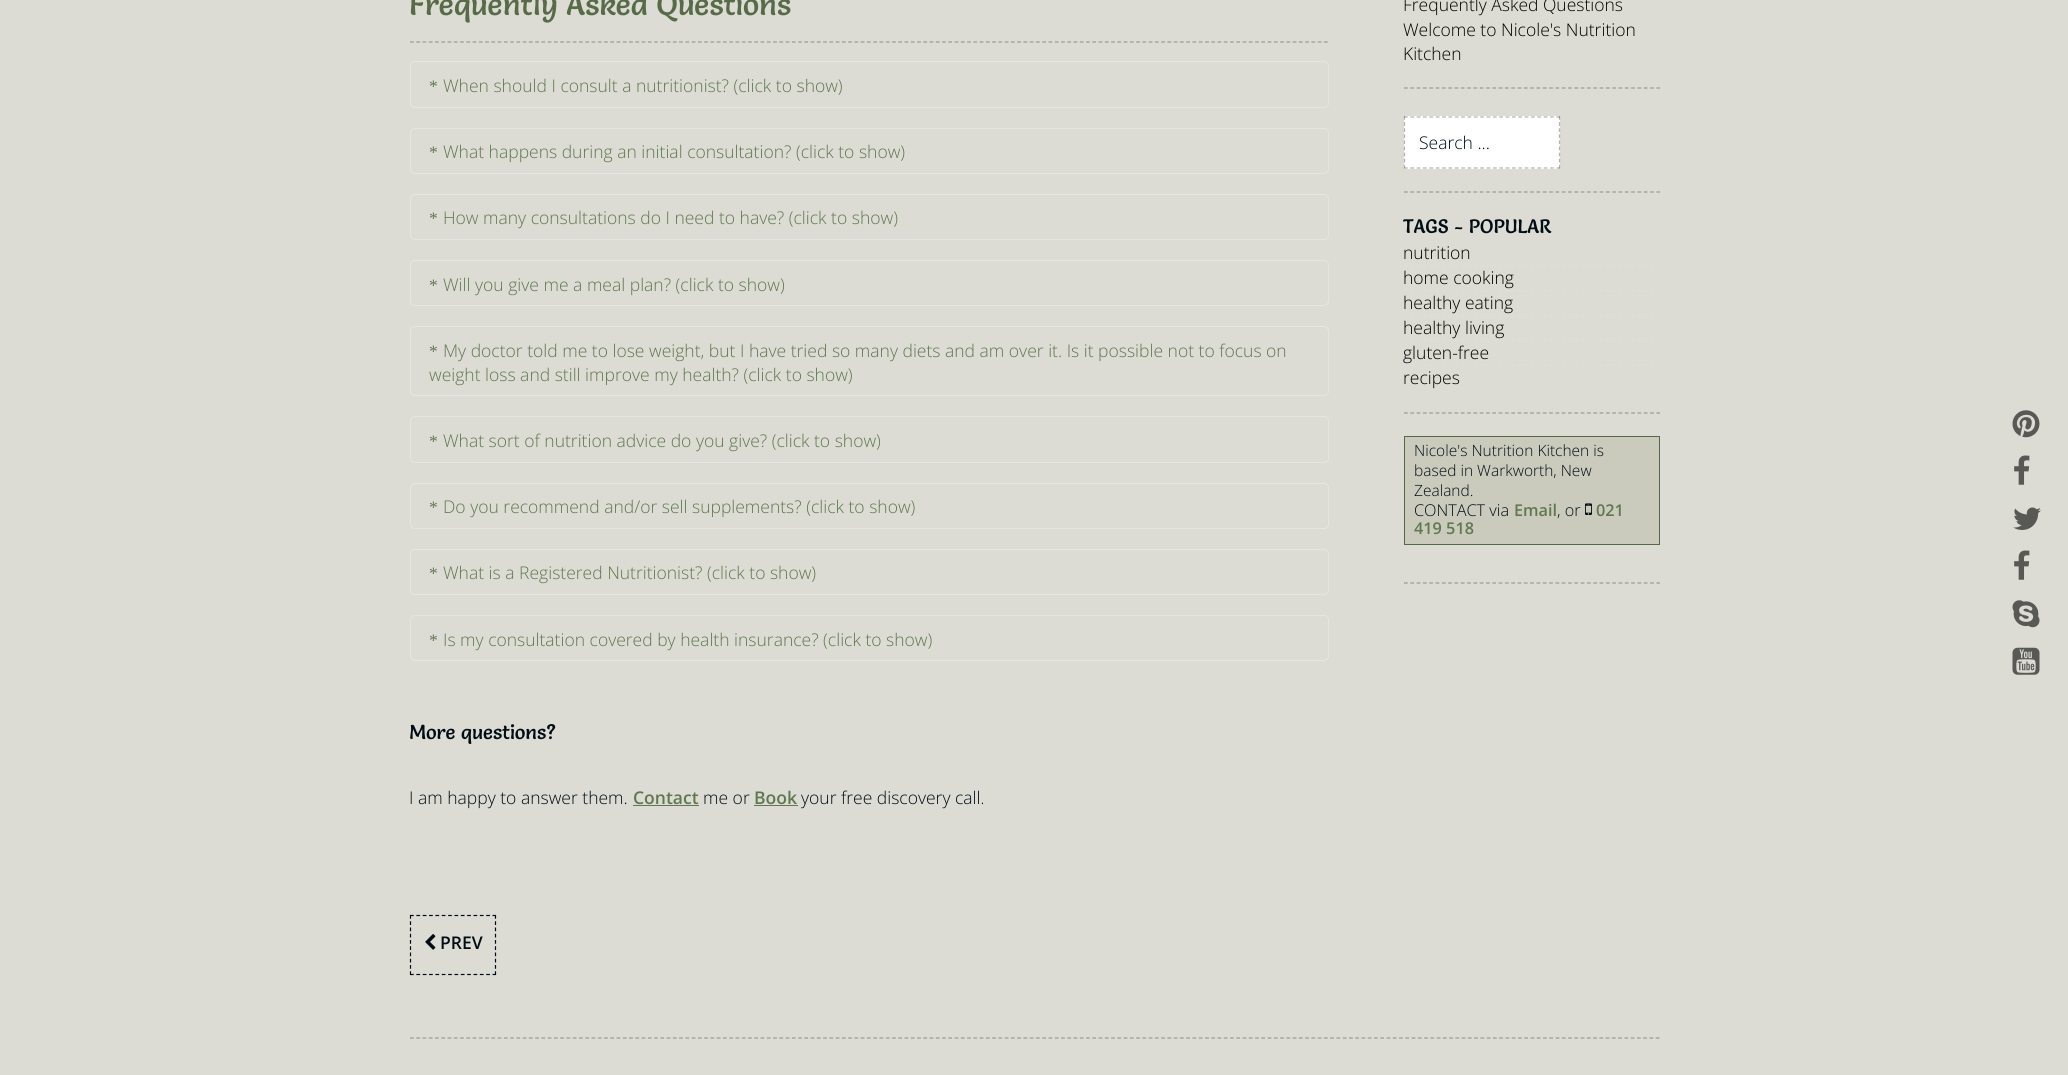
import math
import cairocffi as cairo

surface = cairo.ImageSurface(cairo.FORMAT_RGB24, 2068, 1075)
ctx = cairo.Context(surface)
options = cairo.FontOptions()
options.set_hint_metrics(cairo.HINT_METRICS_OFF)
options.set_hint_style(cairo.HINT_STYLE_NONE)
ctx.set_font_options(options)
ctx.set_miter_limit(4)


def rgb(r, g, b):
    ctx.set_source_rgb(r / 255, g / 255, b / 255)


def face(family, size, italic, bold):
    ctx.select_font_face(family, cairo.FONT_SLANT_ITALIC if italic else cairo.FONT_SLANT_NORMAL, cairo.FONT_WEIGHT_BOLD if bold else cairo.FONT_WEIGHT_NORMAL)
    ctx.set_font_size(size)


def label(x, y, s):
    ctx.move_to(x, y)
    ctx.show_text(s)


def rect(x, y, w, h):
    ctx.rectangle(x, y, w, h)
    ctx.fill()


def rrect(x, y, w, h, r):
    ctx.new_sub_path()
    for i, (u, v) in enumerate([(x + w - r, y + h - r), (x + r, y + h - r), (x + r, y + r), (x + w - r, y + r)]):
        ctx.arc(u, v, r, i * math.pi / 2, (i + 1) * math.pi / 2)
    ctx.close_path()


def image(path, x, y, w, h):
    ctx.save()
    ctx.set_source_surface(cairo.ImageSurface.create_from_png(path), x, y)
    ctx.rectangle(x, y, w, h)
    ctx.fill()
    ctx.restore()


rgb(220, 220, 212)
ctx.paint()
ctx.new_path()
ctx.move_to(410, 1038)
ctx.line_to(1660, 1038)
rgb(154, 154, 148)
ctx.set_line_width(1.2)
ctx.set_dash([3.75, 2.51])
ctx.stroke()
ctx.new_path()
ctx.move_to(410, 42)
ctx.line_to(1329, 42)
ctx.stroke()
face('Salsa', 30.6, 0, 0)
rgb(87, 107, 72)
label(409, 15, 'Frequently Asked Questions')
rrect(410.5, 61.5, 918, 46, 4.5)
rgb(229, 229, 229)
ctx.set_line_width(1)
ctx.set_dash([])
ctx.stroke()
face('Liberation Serif', 17.5, 0, 0)
rgb(96, 119, 80)
label(429, 92, '*')
face('Open Sans Light', 17.5, 0, 0)
label(443, 92, 'When should I consult a nutritionist? (click to show)')
rrect(410.5, 128.5, 918, 45, 4.5)
rgb(229, 229, 229)
ctx.stroke()
face('Liberation Serif', 17.5, 0, 0)
rgb(96, 119, 80)
label(429, 158, '*')
face('Open Sans Light', 17.5, 0, 0)
label(443, 158, 'What happens during an initial consultation? (click to show)')
rrect(410.5, 194.5, 918, 45, 4.5)
rgb(229, 229, 229)
ctx.stroke()
face('Liberation Serif', 17.5, 0, 0)
rgb(96, 119, 80)
label(429, 224, '*')
face('Open Sans Light', 17.5, 0, 0)
label(443, 224, 'How many consultations do I need to have? (click to show)')
rrect(410.5, 260.5, 918, 45, 4.5)
rgb(229, 229, 229)
ctx.stroke()
face('Liberation Serif', 17.5, 0, 0)
rgb(96, 119, 80)
label(429, 291, '*')
face('Open Sans Light', 17.5, 0, 0)
label(443, 291, 'Will you give me a meal plan? (click to show)')
rrect(410.5, 326.5, 918, 69, 4.5)
rgb(229, 229, 229)
ctx.stroke()
face('Liberation Serif', 17.5, 0, 0)
rgb(96, 119, 80)
label(429, 357, '*')
face('Open Sans Light', 17.5, 0, 0)
label(443, 357, 'My doctor told me to lose weight, but I have tried so many diets and am over it. Is it possible not to focus on')
label(429, 381, 'weight loss and still improve my health? (click to show)')
rrect(410.5, 416.5, 918, 46, 4.5)
rgb(229, 229, 229)
ctx.stroke()
face('Liberation Serif', 17.5, 0, 0)
rgb(96, 119, 80)
label(429, 447, '*')
face('Open Sans Light', 17.5, 0, 0)
label(443, 447, 'What sort of nutrition advice do you give? (click to show)')
rrect(410.5, 483.5, 918, 45, 4.5)
rgb(229, 229, 229)
ctx.stroke()
face('Liberation Serif', 17.5, 0, 0)
rgb(96, 119, 80)
label(429, 513, '*')
face('Open Sans Light', 17.5, 0, 0)
label(443, 513, 'Do you recommend and/or sell supplements? (click to show)')
rrect(410.5, 549.5, 918, 45, 4.5)
rgb(229, 229, 229)
ctx.stroke()
face('Liberation Serif', 17.5, 0, 0)
rgb(96, 119, 80)
label(429, 579, '*')
face('Open Sans Light', 17.5, 0, 0)
label(443, 579, 'What is a Registered Nutritionist? (click to show)')
rrect(410.5, 615.5, 918, 45, 4.5)
rgb(229, 229, 229)
ctx.stroke()
face('Liberation Serif', 17.5, 0, 0)
rgb(96, 119, 80)
label(429, 646, '*')
face('Open Sans Light', 17.5, 0, 0)
label(443, 646, 'Is my consultation covered by health insurance? (click to show)')
face('Salsa', 20, 0, 0)
rgb(1, 12, 20)
label(409, 739, 'More questions?')
face('Open Sans Light', 17.5, 0, 0)
label(409, 804, 'I am happy to answer them.')
face('Open Sans SemiBold', 17.5, 0, 0)
rgb(96, 119, 80)
label(633, 804, 'Contact')
rect(633, 805, 66, 1)
face('Open Sans Light', 17.5, 0, 0)
rgb(1, 12, 20)
label(703, 804, 'me or')
face('Open Sans SemiBold', 17.5, 0, 0)
rgb(96, 119, 80)
label(754, 804, 'Book')
rect(754, 805, 44, 1)
face('Open Sans Light', 17.5, 0, 0)
rgb(1, 12, 20)
label(801, 804, 'your free discovery call.')
ctx.new_path()
ctx.move_to(410, 915.5)
ctx.line_to(496, 915.5)
ctx.set_line_width(1.2)
ctx.set_dash([3.75, 2.6])
ctx.stroke()
ctx.new_path()
ctx.move_to(495.5, 915)
ctx.line_to(495.5, 975)
ctx.set_dash([3.75, 2.5])
ctx.stroke()
ctx.new_path()
ctx.move_to(410, 974.5)
ctx.line_to(496, 974.5)
ctx.set_dash([3.75, 2.6])
ctx.stroke()
ctx.new_path()
ctx.move_to(410.5, 915)
ctx.line_to(410.5, 975)
ctx.set_dash([3.75, 2.5])
ctx.stroke()
image('image0.png', 425, 934, 11, 16)
face('Open Sans SemiBold', 17.5, 0, 0)
label(440, 949, 'PREV')
ctx.new_path()
ctx.move_to(1404, 88)
ctx.line_to(1660, 88)
rgb(154, 154, 148)
ctx.set_dash([3.75, 2.56])
ctx.stroke()
ctx.new_path()
ctx.move_to(1404, 17)
ctx.line_to(1660, 17)
rgb(221, 221, 221)
ctx.stroke()
face('Open Sans Light', 17.5, 0, 0)
rgb(0, 0, 0)
label(1403, 11, 'Frequently Asked Questions')
label(1403, 36, 'Welcome to Nicole\'s Nutrition')
label(1403, 60, 'Kitchen')
ctx.new_path()
ctx.move_to(1404, 192)
ctx.line_to(1660, 192)
rgb(154, 154, 148)
ctx.stroke()
rgb(255, 255, 255)
rect(1404, 116, 156, 53)
ctx.new_path()
ctx.move_to(1404, 117)
ctx.line_to(1560, 117)
rgb(179, 179, 179)
ctx.set_dash([3.75, 2.6])
ctx.stroke()
ctx.new_path()
ctx.move_to(1559.5, 116)
ctx.line_to(1559.5, 169)
ctx.set_source_rgba(0, 0, 0, 0.3)
ctx.set_dash([3.75, 2.35])
ctx.stroke()
ctx.new_path()
ctx.move_to(1404, 168)
ctx.line_to(1560, 168)
ctx.set_dash([3.75, 2.6])
ctx.stroke()
ctx.new_path()
ctx.move_to(1404.5, 116)
ctx.line_to(1404.5, 169)
ctx.set_dash([3.75, 2.35])
ctx.stroke()
rgb(1, 12, 20)
label(1419, 149, 'Search ...')
face('Salsa', 19.25, 0, 0)
label(1403, 233, 'TAGS - POPULAR')
ctx.new_path()
ctx.move_to(1404, 413)
ctx.line_to(1660, 413)
rgb(154, 154, 148)
ctx.set_dash([3.75, 2.56])
ctx.stroke()
ctx.new_path()
ctx.move_to(1404, 265.5)
ctx.line_to(1660, 265.5)
rgb(221, 221, 221)
ctx.stroke()
face('Open Sans Light', 17.5, 0, 0)
rgb(0, 0, 0)
label(1403, 259, 'nutrition')
ctx.new_path()
ctx.move_to(1404, 290.5)
ctx.line_to(1660, 290.5)
rgb(221, 221, 221)
ctx.stroke()
rgb(0, 0, 0)
label(1403, 284, 'home cooking')
ctx.new_path()
ctx.move_to(1404, 315.5)
ctx.line_to(1660, 315.5)
rgb(221, 221, 221)
ctx.stroke()
rgb(0, 0, 0)
label(1403, 309, 'healthy eating')
ctx.new_path()
ctx.move_to(1404, 340.5)
ctx.line_to(1660, 340.5)
rgb(221, 221, 221)
ctx.stroke()
rgb(0, 0, 0)
label(1403, 334, 'healthy living')
ctx.new_path()
ctx.move_to(1404, 365.5)
ctx.line_to(1660, 365.5)
rgb(221, 221, 221)
ctx.stroke()
rgb(0, 0, 0)
label(1403, 359, 'gluten-free')
label(1403, 384, 'recipes')
ctx.new_path()
ctx.move_to(1404, 583)
ctx.line_to(1660, 583)
rgb(154, 154, 148)
ctx.stroke()
rgb(202, 203, 189)
ctx.rectangle(1404.5, 436.5, 255, 108)
ctx.fill_preserve()
rgb(85, 105, 70)
ctx.set_line_width(1)
ctx.set_dash([])
ctx.stroke()
face('Open Sans Light', 15.5, 0, 0)
rgb(1, 12, 20)
label(1414, 456, 'Nicole\'s Nutrition Kitchen is')
label(1414, 476, 'based in Warkworth, New')
label(1414, 496, 'Zealand.')
face('Open Sans Light', 16.25, 0, 0)
label(1414, 516, 'CONTACT via')
face('Open Sans SemiBold', 16.25, 0, 0)
rgb(96, 119, 80)
label(1514, 516, 'Email')
face('Open Sans Light', 16.25, 0, 0)
rgb(1, 12, 20)
label(1557, 516, ', or')
image('image1.png', 1585, 503, 7, 12)
face('Open Sans SemiBold', 16.25, 0, 0)
rgb(96, 119, 80)
label(1596, 516, '021')
label(1414, 534, '419 518')
image('image2.png', 2012, 410, 28, 28)
image('image3.png', 2014, 455, 16, 30)
image('image4.png', 2013, 507, 28, 23)
image('image3.png', 2014, 550, 16, 30)
image('image5.png', 2012, 600, 28, 28)
image('image6.png', 2012, 647, 28, 28)
surface.write_to_png('render.png')
